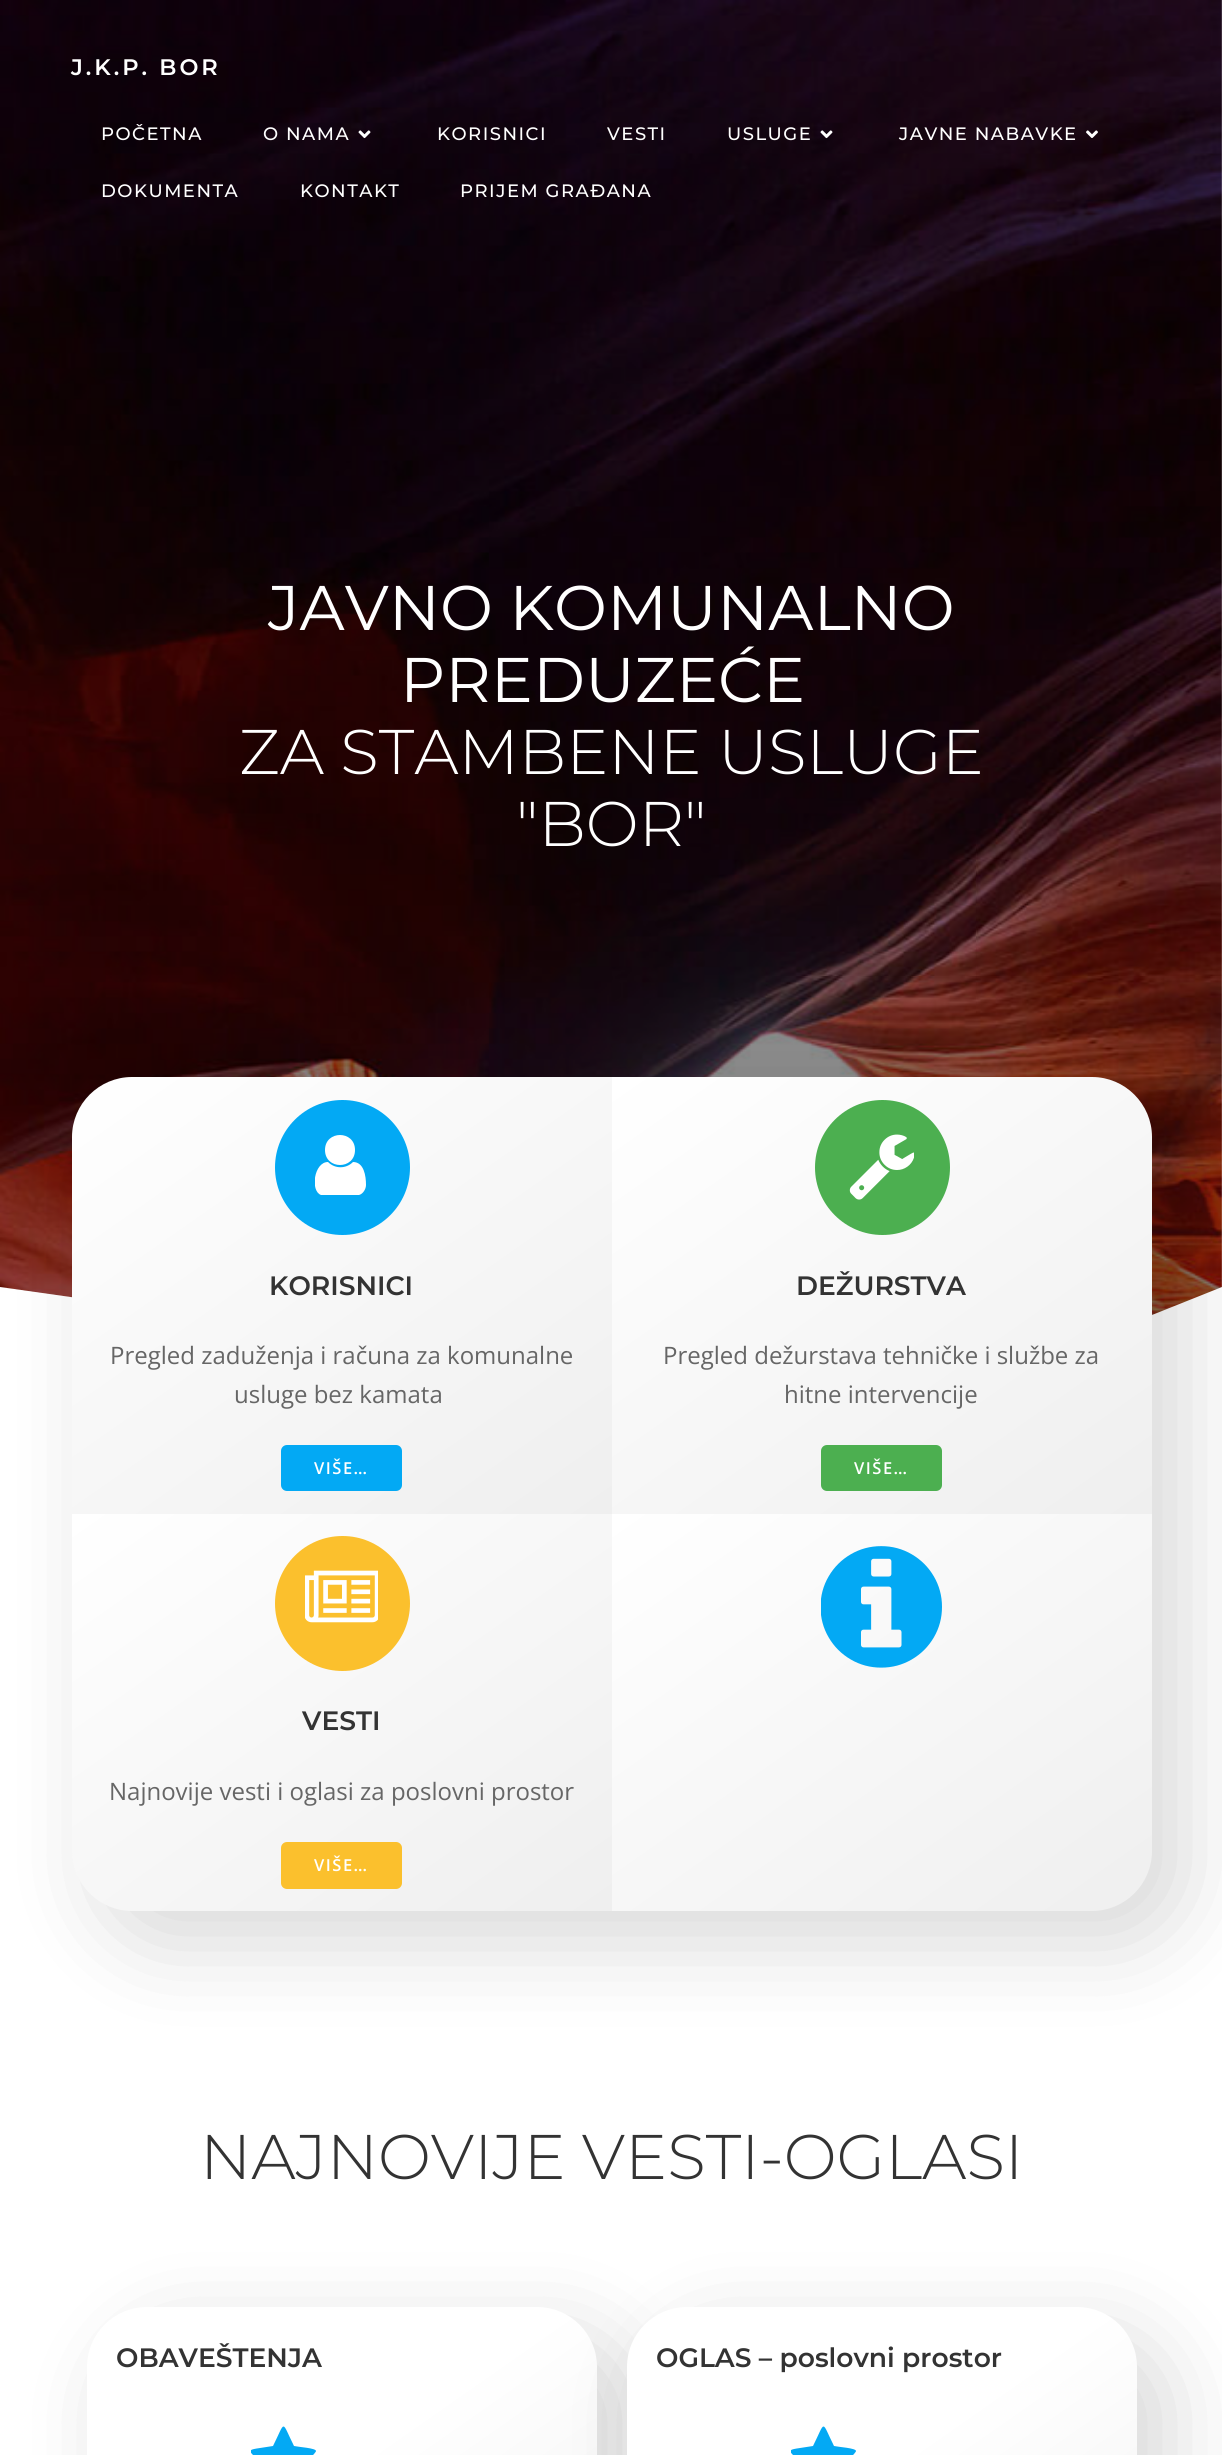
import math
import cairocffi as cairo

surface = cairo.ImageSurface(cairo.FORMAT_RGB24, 1222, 2455)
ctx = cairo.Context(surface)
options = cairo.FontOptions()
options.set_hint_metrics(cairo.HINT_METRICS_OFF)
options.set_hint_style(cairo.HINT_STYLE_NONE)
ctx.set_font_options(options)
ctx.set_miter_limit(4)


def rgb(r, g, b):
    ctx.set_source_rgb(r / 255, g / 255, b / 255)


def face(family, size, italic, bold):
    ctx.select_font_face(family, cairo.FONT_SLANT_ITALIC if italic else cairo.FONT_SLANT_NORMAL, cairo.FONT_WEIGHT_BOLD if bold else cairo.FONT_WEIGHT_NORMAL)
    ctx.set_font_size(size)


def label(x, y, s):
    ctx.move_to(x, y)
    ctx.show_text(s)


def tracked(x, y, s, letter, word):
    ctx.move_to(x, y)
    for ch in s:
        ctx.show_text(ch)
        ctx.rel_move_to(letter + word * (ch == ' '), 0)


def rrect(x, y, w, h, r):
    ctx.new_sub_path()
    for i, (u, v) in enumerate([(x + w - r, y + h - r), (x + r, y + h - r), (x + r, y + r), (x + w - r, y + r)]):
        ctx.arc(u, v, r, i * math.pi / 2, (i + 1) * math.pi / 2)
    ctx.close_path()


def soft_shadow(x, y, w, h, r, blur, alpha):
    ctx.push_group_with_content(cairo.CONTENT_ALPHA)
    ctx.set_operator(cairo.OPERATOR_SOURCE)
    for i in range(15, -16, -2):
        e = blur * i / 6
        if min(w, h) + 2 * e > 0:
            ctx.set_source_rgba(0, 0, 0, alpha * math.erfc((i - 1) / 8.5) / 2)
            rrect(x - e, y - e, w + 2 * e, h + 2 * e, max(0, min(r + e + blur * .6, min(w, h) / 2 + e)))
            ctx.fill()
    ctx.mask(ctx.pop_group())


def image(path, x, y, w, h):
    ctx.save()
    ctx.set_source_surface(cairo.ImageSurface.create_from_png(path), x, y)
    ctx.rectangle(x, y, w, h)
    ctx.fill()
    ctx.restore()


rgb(255, 255, 255)
ctx.paint()
image('image3.png', 0, 0, 1222, 1315)
face('Montserrat SemiBold', 22.5, 0, 0)
rgb(255, 255, 255)
tracked(71, 75, 'J.K.P. BOR', 3, 0)
face('Montserrat Medium', 18, 0, 0)
tracked(101, 140, 'POČETNA', 1.5, 0)
tracked(263, 140, 'O NAMA', 1.5, 0)
image('image0.png', 358, 130, 13, 9)
tracked(437, 140, 'KORISNICI', 1.5, 0)
tracked(607, 140, 'VESTI', 1.5, 0)
tracked(727, 140, 'USLUGE', 1.5, 0)
image('image1.png', 820, 130, 13, 9)
tracked(899, 140, 'JAVNE NABAVKE', 1.5, 0)
image('image2.png', 1086, 130, 12, 8)
tracked(101, 197, 'DOKUMENTA', 1.5, 0)
tracked(300, 197, 'KONTAKT', 1.5, 0)
tracked(460, 197, 'PRIJEM GRAĐANA', 1.5, 0)
face('Montserrat', 63, 0, 0)
label(268, 630, 'JAVNO KOMUNALNO')
label(400, 702, 'PREDUZEĆE')
face('Montserrat Light', 63, 0, 0)
label(239, 774, 'ZA STAMBENE USLUGE')
label(516, 846, '"BOR"')
ctx.new_path()
ctx.move_to(902, 1415)
ctx.line_to(0, 1287)
ctx.line_to(0, 1422)
ctx.line_to(1222, 1422)
ctx.line_to(1222, 1287)
ctx.close_path()
ctx.fill()
rgb(0, 0, 0)
soft_shadow(99, 1104, 1086, 840, 63, 45, 0.15)
gradient = cairo.LinearGradient(151, 1022, 533, 1569)
gradient.add_color_stop_rgba(0, 1, 1, 1, 1)
gradient.add_color_stop_rgba(1, 0.937, 0.937, 0.937, 1)
ctx.set_source(gradient)
ctx.new_path()
ctx.move_to(132, 1077)
ctx.line_to(612, 1077)
ctx.line_to(612, 1514)
ctx.line_to(72, 1514)
ctx.line_to(72, 1137)
ctx.curve_to(72, 1104, 99, 1077, 132, 1077)
ctx.close_path()
ctx.fill()
rgb(3, 169, 244)
ctx.arc(342.5, 1167.5, 67.5, 0, 2 * math.pi)
ctx.fill()
ctx.save()
ctx.rectangle(315, 1130, 53, 75)
ctx.clip()
rgb(255, 255, 255)
ctx.new_path()
ctx.move_to(366, 1185)
ctx.curve_to(366, 1189, 363, 1194, 359, 1195)
ctx.line_to(329, 1195)
ctx.line_to(321, 1195)
ctx.curve_to(310, 1191, 314, 1162, 328, 1162)
ctx.curve_to(335, 1169, 346, 1169, 353, 1162)
ctx.curve_to(364, 1162, 366, 1176, 366, 1185)
ctx.close_path()
ctx.move_to(355, 1150)
ctx.curve_to(355, 1170, 325, 1170, 325, 1150)
ctx.curve_to(325, 1130, 355, 1130, 355, 1150)
ctx.close_path()
ctx.fill()
ctx.restore()
face('Montserrat SemiBold', 26.6, 0, 0)
rgb(51, 51, 51)
label(269, 1295, 'KORISNICI')
face('Open Sans', 24, 0, 0)
rgb(102, 102, 102)
label(110, 1364, 'Pregled zaduženja i računa za komunalne')
label(234, 1403, 'usluge bez kamata')
rgb(3, 169, 244)
rrect(282.5, 1446.5, 118, 43, 4.5)
ctx.fill_preserve()
ctx.set_line_width(3)
ctx.stroke()
face('Open Sans SemiBold', 16.5, 0, 0)
rgb(255, 255, 255)
tracked(314, 1474, 'VIŠE…', 1.5, 0)
gradient = cairo.LinearGradient(691, 1022, 1073, 1569)
gradient.add_color_stop_rgba(0, 1, 1, 1, 1)
gradient.add_color_stop_rgba(1, 0.937, 0.937, 0.937, 1)
ctx.set_source(gradient)
ctx.new_path()
ctx.move_to(612, 1077)
ctx.line_to(1092, 1077)
ctx.curve_to(1125, 1077, 1152, 1104, 1152, 1137)
ctx.line_to(1152, 1514)
ctx.line_to(612, 1514)
ctx.close_path()
ctx.fill()
rgb(76, 175, 80)
ctx.arc(882.5, 1167.5, 67.5, 0, 2 * math.pi)
ctx.fill()
image('image4.png', 849, 1134, 65, 66)
face('Montserrat SemiBold', 26.6, 0, 0)
rgb(51, 51, 51)
label(796, 1295, 'DEŽURSTVA')
face('Open Sans', 24, 0, 0)
rgb(102, 102, 102)
label(663, 1364, 'Pregled dežurstava tehničke i službe za')
label(784, 1403, 'hitne intervencije')
rgb(76, 175, 80)
rrect(822.5, 1446.5, 118, 43, 4.5)
ctx.fill_preserve()
ctx.stroke()
face('Open Sans SemiBold', 16.5, 0, 0)
rgb(255, 255, 255)
tracked(854, 1474, 'VIŠE…', 1.5, 0)
gradient = cairo.LinearGradient(160, 1452, 524, 1972)
gradient.add_color_stop_rgba(0, 1, 1, 1, 1)
gradient.add_color_stop_rgba(1, 0.937, 0.937, 0.937, 1)
ctx.set_source(gradient)
ctx.new_path()
ctx.move_to(72, 1514)
ctx.line_to(612, 1514)
ctx.line_to(612, 1911)
ctx.line_to(132, 1911)
ctx.curve_to(99, 1911, 72, 1884, 72, 1851)
ctx.close_path()
ctx.fill()
rgb(251, 192, 45)
ctx.arc(342.5, 1603.5, 67.5, 0, 2 * math.pi)
ctx.fill()
image('image5.png', 305, 1570, 73, 53)
face('Montserrat SemiBold', 26.6, 0, 0)
rgb(51, 51, 51)
label(302, 1730, 'VESTI')
face('Open Sans', 24, 0, 0)
rgb(102, 102, 102)
label(109, 1800, 'Najnovije vesti i oglasi za poslovni prostor')
rgb(251, 192, 45)
rrect(282.5, 1843.5, 118, 44, 4.5)
ctx.fill_preserve()
ctx.stroke()
face('Open Sans SemiBold', 16.5, 0, 0)
rgb(255, 255, 255)
tracked(314, 1871, 'VIŠE…', 1.5, 0)
gradient = cairo.LinearGradient(700, 1452, 1064, 1972)
gradient.add_color_stop_rgba(0, 1, 1, 1, 1)
gradient.add_color_stop_rgba(1, 0.937, 0.937, 0.937, 1)
ctx.set_source(gradient)
ctx.new_path()
ctx.move_to(612, 1514)
ctx.line_to(1152, 1514)
ctx.line_to(1152, 1851)
ctx.curve_to(1152, 1884, 1125, 1911, 1092, 1911)
ctx.line_to(612, 1911)
ctx.close_path()
ctx.fill()
image('image6.png', 821, 1546, 121, 122)
face('Montserrat Light', 63, 0, 0)
rgb(51, 51, 51)
label(200, 2179, 'NAJNOVIJE VESTI-OGLASI')
rgb(0, 0, 0)
soft_shadow(114, 2334, 516, 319, 63, 45, 0.15)
gradient = cairo.LinearGradient(154, 2260, 530, 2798)
gradient.add_color_stop_rgba(0.42, 1, 1, 1, 1)
gradient.add_color_stop_rgba(1, 0.937, 0.937, 0.937, 1)
ctx.set_source(gradient)
rrect(87, 2307, 510, 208, 60)
ctx.fill()
face('Montserrat SemiBold', 26.6, 0, 0)
rgb(51, 51, 51)
label(116, 2367, 'OBAVEŠTENJA')
ctx.save()
ctx.rectangle(251, 2426, 66, 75)
ctx.clip()
rgb(3, 169, 244)
ctx.new_path()
ctx.move_to(316, 2451)
ctx.curve_to(316, 2453, 303, 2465, 301, 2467)
ctx.curve_to(306, 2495, 310, 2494, 283, 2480)
ctx.curve_to(257, 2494, 261, 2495, 266, 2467)
ctx.curve_to(245, 2447, 243, 2451, 273, 2446)
ctx.curve_to(286, 2420, 281, 2420, 294, 2446)
ctx.curve_to(298, 2447, 316, 2448, 316, 2451)
ctx.close_path()
ctx.fill()
ctx.restore()
rgb(0, 0, 0)
soft_shadow(654, 2334, 516, 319, 63, 45, 0.15)
gradient = cairo.LinearGradient(694, 2260, 1070, 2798)
gradient.add_color_stop_rgba(0.42, 1, 1, 1, 1)
gradient.add_color_stop_rgba(1, 0.937, 0.937, 0.937, 1)
ctx.set_source(gradient)
rrect(627, 2307, 510, 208, 60)
ctx.fill()
rgb(51, 51, 51)
label(656, 2367, 'OGLAS – poslovni prostor')
ctx.save()
ctx.rectangle(791, 2426, 66, 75)
ctx.clip()
rgb(3, 169, 244)
ctx.new_path()
ctx.move_to(856, 2451)
ctx.curve_to(856, 2453, 843, 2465, 841, 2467)
ctx.curve_to(846, 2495, 850, 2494, 823, 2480)
ctx.curve_to(797, 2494, 801, 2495, 806, 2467)
ctx.curve_to(785, 2447, 783, 2451, 813, 2446)
ctx.curve_to(826, 2420, 821, 2420, 834, 2446)
ctx.curve_to(838, 2447, 856, 2448, 856, 2451)
ctx.close_path()
ctx.fill()
ctx.restore()
surface.write_to_png('render.png')
